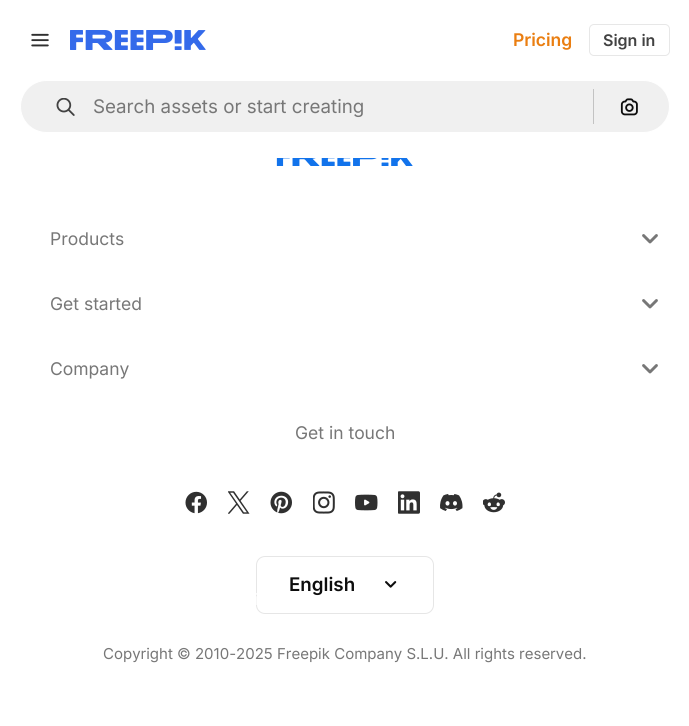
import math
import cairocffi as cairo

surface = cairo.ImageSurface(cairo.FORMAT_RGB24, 689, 726)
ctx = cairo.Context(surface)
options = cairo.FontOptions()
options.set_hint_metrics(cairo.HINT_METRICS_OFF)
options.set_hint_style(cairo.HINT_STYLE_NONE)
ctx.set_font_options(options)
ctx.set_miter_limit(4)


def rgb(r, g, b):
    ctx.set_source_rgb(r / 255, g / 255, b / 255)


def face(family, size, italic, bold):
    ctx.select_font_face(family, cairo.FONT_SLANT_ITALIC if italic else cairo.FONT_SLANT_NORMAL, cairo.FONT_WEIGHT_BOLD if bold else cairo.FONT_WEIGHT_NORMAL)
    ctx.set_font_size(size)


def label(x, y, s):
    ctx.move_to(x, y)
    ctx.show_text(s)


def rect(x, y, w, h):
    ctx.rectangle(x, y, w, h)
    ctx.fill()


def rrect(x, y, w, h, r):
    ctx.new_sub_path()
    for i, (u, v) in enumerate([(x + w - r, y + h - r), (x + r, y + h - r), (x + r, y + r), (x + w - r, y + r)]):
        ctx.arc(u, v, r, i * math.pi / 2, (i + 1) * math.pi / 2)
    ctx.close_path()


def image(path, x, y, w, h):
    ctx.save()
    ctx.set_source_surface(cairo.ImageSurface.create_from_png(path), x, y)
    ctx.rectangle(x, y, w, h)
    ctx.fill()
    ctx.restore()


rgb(255, 255, 255)
ctx.paint()
image('image0.png', 31, 33, 18, 14)
image('image1.png', 70, 30, 136, 20)
face('Inter SemiBold', 17.5, 0, 0)
rgb(234, 126, 17)
label(513, 46, 'Pricing')
rrect(589.5, 24.5, 80, 31, 4.5)
rgb(231, 231, 231)
ctx.set_line_width(1)
ctx.stroke()
face('Inter SemiBold', 16, 0, 0)
rgb(66, 66, 66)
label(603, 46, 'Sign in')
rgb(240, 240, 240)
rrect(20.5, 80.5, 649, 52, 26)
ctx.fill_preserve()
rgb(255, 255, 255)
ctx.stroke()
image('image2.png', 56, 98, 19, 18)
face('Inter', 18.75, 0, 0)
rgb(119, 119, 119)
label(93, 113, 'Search assets or start creating')
rgb(195, 195, 195)
rect(593, 89, 1, 35)
image('image3.png', 620, 98, 18, 18)
image('image4.png', 276, 158, 137, 8)
face('Inter', 17.5, 0, 0)
rgb(119, 119, 119)
label(50, 245, 'Products')
image('image5.png', 642, 234, 16, 10)
label(50, 310, 'Get started')
image('image5.png', 642, 299, 16, 10)
label(50, 375, 'Company')
image('image5.png', 642, 364, 16, 10)
label(295, 439, 'Get in touch')
image('image6.png', 185, 491, 22, 23)
image('image7.png', 228, 491, 22, 23)
image('image8.png', 270, 491, 22, 23)
image('image9.png', 313, 491, 22, 23)
image('image10.png', 355, 494, 23, 17)
image('image11.png', 398, 491, 22, 23)
image('image12.png', 440, 494, 23, 17)
image('image13.png', 483, 492, 22, 21)
rrect(256.5, 556.5, 177, 57, 8.5)
rgb(230, 230, 230)
ctx.stroke()
face('Inter SemiBold', 18.75, 0, 0)
rgb(13, 13, 13)
label(289, 591, 'English')
image('image14.png', 385, 581, 12, 7)
face('Inter', 15, 0, 0)
rgb(119, 119, 119)
label(103, 659, 'Copyright © 2010-2025 Freepik Company S.L.U. All rights reserved.')
face('Inter', 16, 0, 0)
rgb(255, 255, 255)
label(254, 605, 'i')
surface.write_to_png('render.png')
